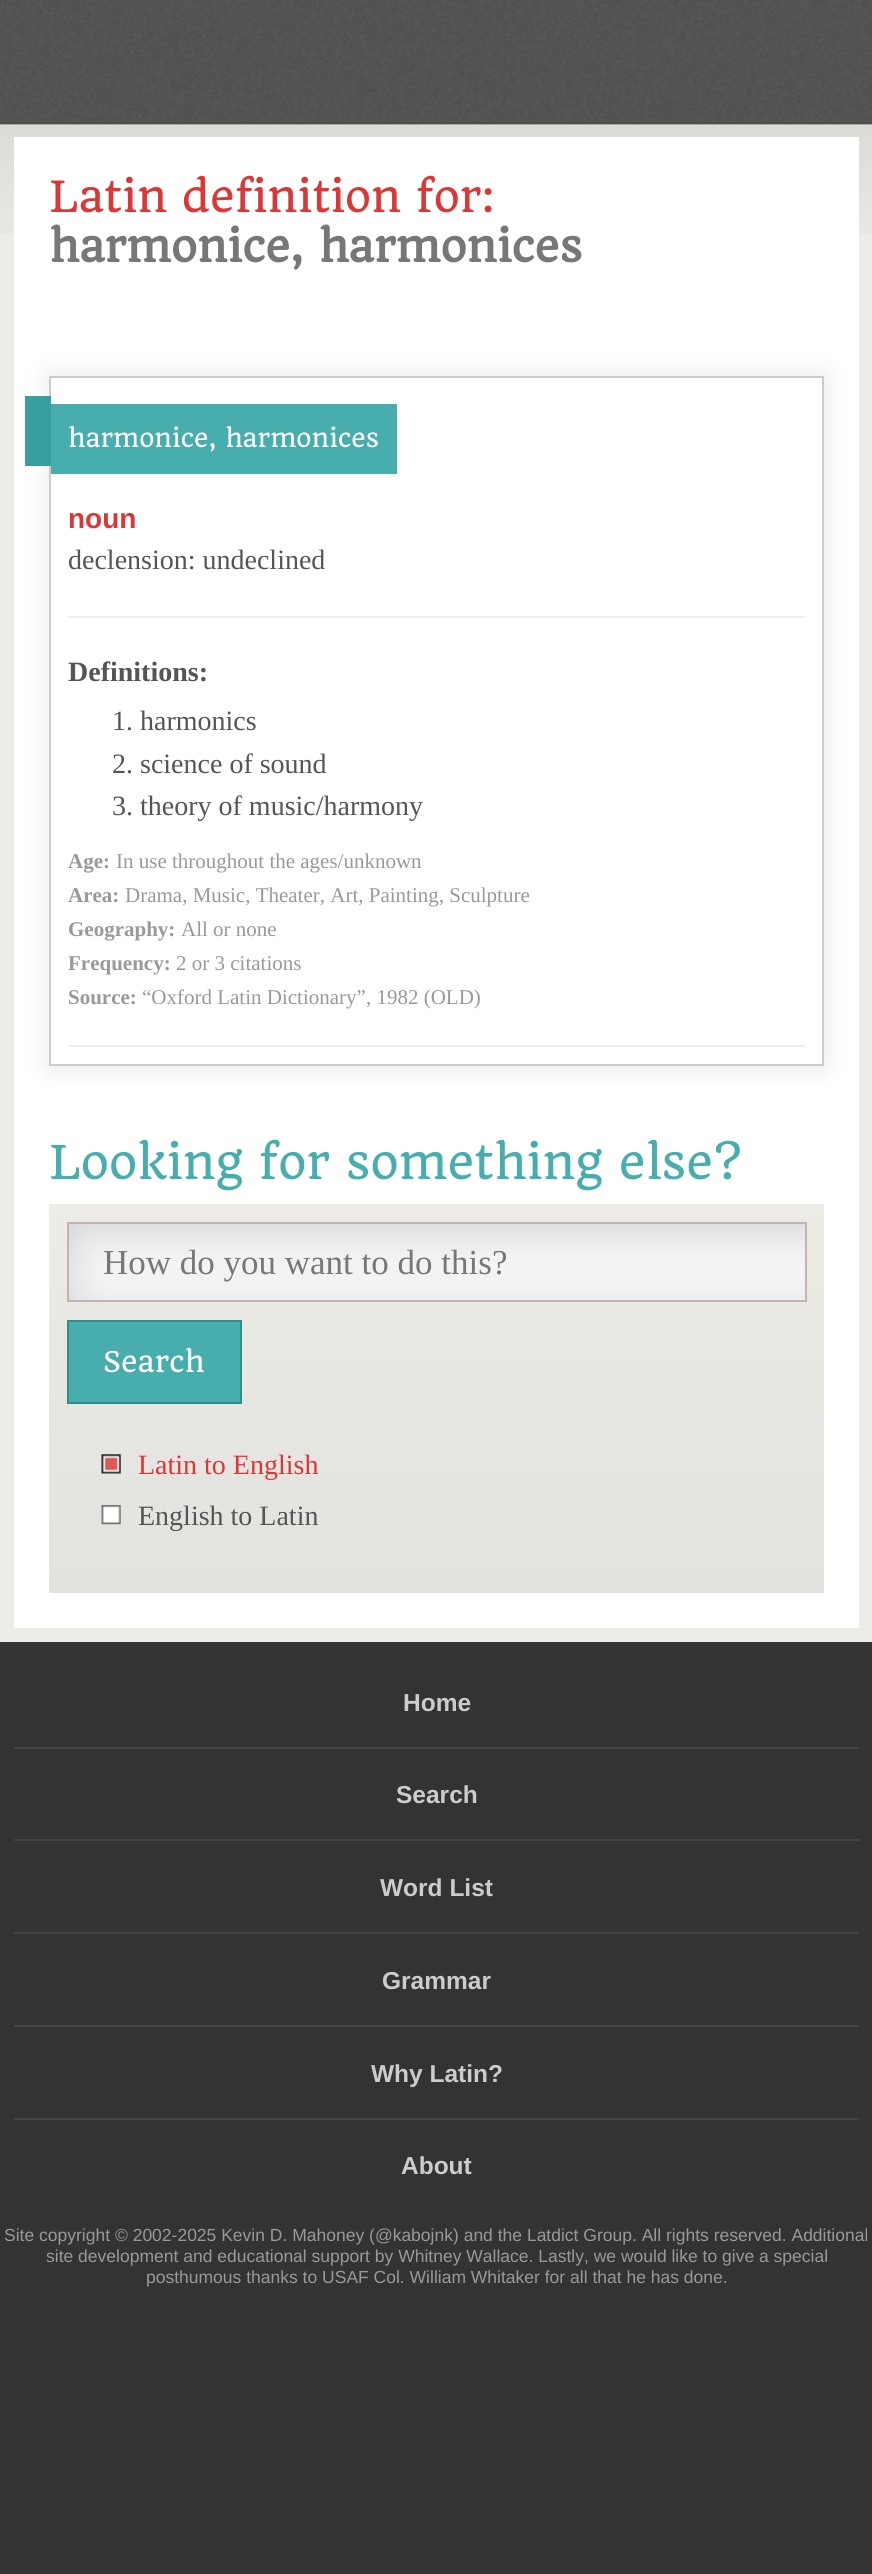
import math
import cairocffi as cairo

surface = cairo.ImageSurface(cairo.FORMAT_RGB24, 872, 2574)
ctx = cairo.Context(surface)
options = cairo.FontOptions()
options.set_hint_metrics(cairo.HINT_METRICS_OFF)
options.set_hint_style(cairo.HINT_STYLE_NONE)
ctx.set_font_options(options)
ctx.set_miter_limit(4)


def rgb(r, g, b):
    ctx.set_source_rgb(r / 255, g / 255, b / 255)


def face(family, size, italic, bold):
    ctx.select_font_face(family, cairo.FONT_SLANT_ITALIC if italic else cairo.FONT_SLANT_NORMAL, cairo.FONT_WEIGHT_BOLD if bold else cairo.FONT_WEIGHT_NORMAL)
    ctx.set_font_size(size)


def label(x, y, s):
    ctx.move_to(x, y)
    ctx.show_text(s)


def rect(x, y, w, h):
    ctx.rectangle(x, y, w, h)
    ctx.fill()


def rrect(x, y, w, h, r):
    ctx.new_sub_path()
    for i, (u, v) in enumerate([(x + w - r, y + h - r), (x + r, y + h - r), (x + r, y + r), (x + w - r, y + r)]):
        ctx.arc(u, v, r, i * math.pi / 2, (i + 1) * math.pi / 2)
    ctx.close_path()


def soft_shadow(x, y, w, h, r, blur, alpha):
    ctx.push_group_with_content(cairo.CONTENT_ALPHA)
    ctx.set_operator(cairo.OPERATOR_SOURCE)
    for i in range(15, -16, -2):
        e = blur * i / 6
        if min(w, h) + 2 * e > 0:
            ctx.set_source_rgba(0, 0, 0, alpha * math.erfc((i - 1) / 8.5) / 2)
            rrect(x - e, y - e, w + 2 * e, h + 2 * e, max(0, min(r + e + blur * .6, min(w, h) / 2 + e)))
            ctx.fill()
    ctx.mask(ctx.pop_group())


def image(path, x, y, w, h):
    ctx.save()
    ctx.set_source_surface(cairo.ImageSurface.create_from_png(path), x, y)
    ctx.rectangle(x, y, w, h)
    ctx.fill()
    ctx.restore()


rgb(51, 51, 51)
ctx.paint()
rgb(82, 82, 82)
rect(0, 122, 872, 1)
image('image0.png', 0, 0, 872, 122)
rgb(237, 236, 230)
rect(0, 234, 872, 1408)
image('image1.png', 0, 122, 872, 112)
rgb(255, 255, 255)
rect(14, 137, 845, 1491)
face('Quando', 42, 0, 0)
rgb(218, 55, 55)
label(49, 212, 'Latin definition for:')
face('Quando', 42, 0, 1)
rgb(119, 119, 119)
label(49, 262, 'harmonice, harmonices')
rgb(0, 0, 0)
soft_shadow(49, 376, 775, 690, 0, 13, 0.1)
rgb(255, 255, 255)
ctx.rectangle(50, 377, 773, 688)
ctx.fill_preserve()
rgb(204, 204, 204)
ctx.stroke()
rgb(71, 173, 173)
rect(51, 404, 346, 70)
rgb(56, 158, 158)
rect(25, 396, 26, 70)
face('Quando', 24.5, 0, 0)
rgb(255, 255, 255)
label(68, 447, 'harmonice, harmonices')
face('Liberation Sans', 28, 0, 1)
rgb(218, 55, 55)
label(68, 528, 'noun')
face('Liberation Serif', 28, 0, 0)
rgb(85, 85, 85)
label(68, 569, 'declension: undeclined')
rgb(238, 238, 238)
rect(68, 616, 737, 2)
rect(68, 1045, 737, 2)
face('Liberation Serif', 28, 0, 1)
rgb(85, 85, 85)
label(68, 681, 'Definitions:')
face('Liberation Serif', 28, 0, 0)
label(112, 730, '1. harmonics')
label(112, 773, '2. science of sound')
label(112, 815, '3. theory of music/harmony')
face('Liberation Serif', 21, 0, 1)
rgb(153, 153, 153)
label(68, 868, 'Age:')
face('Liberation Serif', 21, 0, 0)
label(116, 868, 'In use throughout the ages/unknown')
face('Liberation Serif', 21, 0, 1)
label(68, 902, 'Area:')
face('Liberation Serif', 21, 0, 0)
label(125, 902, 'Drama, Music, Theater, Art, Painting, Sculpture')
face('Liberation Serif', 21, 0, 1)
label(68, 936, 'Geography:')
face('Liberation Serif', 21, 0, 0)
label(181, 936, 'All or none')
face('Liberation Serif', 21, 0, 1)
label(68, 970, 'Frequency:')
face('Liberation Serif', 21, 0, 0)
label(176, 970, '2 or 3 citations')
face('Liberation Serif', 21, 0, 1)
label(68, 1004, 'Source:')
face('Liberation Serif', 21, 0, 0)
label(142, 1004, '“Oxford Latin Dictionary”, 1982 (OLD)')
face('Quando', 45.5, 0, 0)
rgb(71, 173, 173)
label(49, 1179, 'Looking for something else?')
gradient = cairo.LinearGradient(437, 1204, 437, 1593)
gradient.add_color_stop_rgba(0, 0.929, 0.925, 0.902, 1)
gradient.add_color_stop_rgba(1, 0.886, 0.886, 0.871, 1)
ctx.set_source(gradient)
rect(49, 1204, 775, 389)
image('image2.png', 69, 1224, 736, 76)
ctx.rectangle(68, 1223, 738, 78)
rgb(198, 177, 177)
ctx.stroke()
face('Liberation Serif', 35, 0, 0)
rgb(119, 119, 119)
label(103, 1274, 'How do you want to do this?')
rgb(71, 173, 173)
ctx.rectangle(68, 1321, 173, 82)
ctx.fill_preserve()
rgb(52, 140, 140)
ctx.stroke()
face('Quando', 28, 0, 0)
rgb(255, 255, 255)
label(103, 1372, 'Search')
image('image3.png', 101, 1454, 20, 20)
face('Liberation Serif', 28, 0, 0)
rgb(218, 55, 55)
label(138, 1474, 'Latin to English')
image('image4.png', 101, 1505, 20, 20)
rgb(85, 85, 85)
label(138, 1525, 'English to Latin')
face('Liberation Sans', 24.5, 0, 1)
rgb(204, 204, 204)
label(403, 1711, 'Home')
rgb(68, 68, 68)
rect(14, 1747, 845, 2)
rgb(204, 204, 204)
label(396, 1803, 'Search')
rgb(68, 68, 68)
rect(14, 1839, 845, 2)
rgb(204, 204, 204)
label(380, 1896, 'Word List')
rgb(68, 68, 68)
rect(14, 1932, 845, 2)
rgb(204, 204, 204)
label(382, 1989, 'Grammar')
rgb(68, 68, 68)
rect(14, 2025, 845, 2)
rgb(204, 204, 204)
label(371, 2082, 'Why Latin?')
rgb(68, 68, 68)
rect(14, 2118, 845, 2)
rgb(204, 204, 204)
label(401, 2174, 'About')
face('Liberation Sans', 17.5, 0, 0)
rgb(153, 153, 153)
label(4, 2241, 'Site copyright © 2002-2025 Kevin D. Mahoney (@kabojnk) and the Latdict Group. All rights reserved. Additional')
label(46, 2262, 'site development and educational support by Whitney Wallace. Lastly, we would like to give a special')
label(146, 2283, 'posthumous thanks to USAF Col. William Whitaker for all that he has done.')
surface.write_to_png('render.png')
